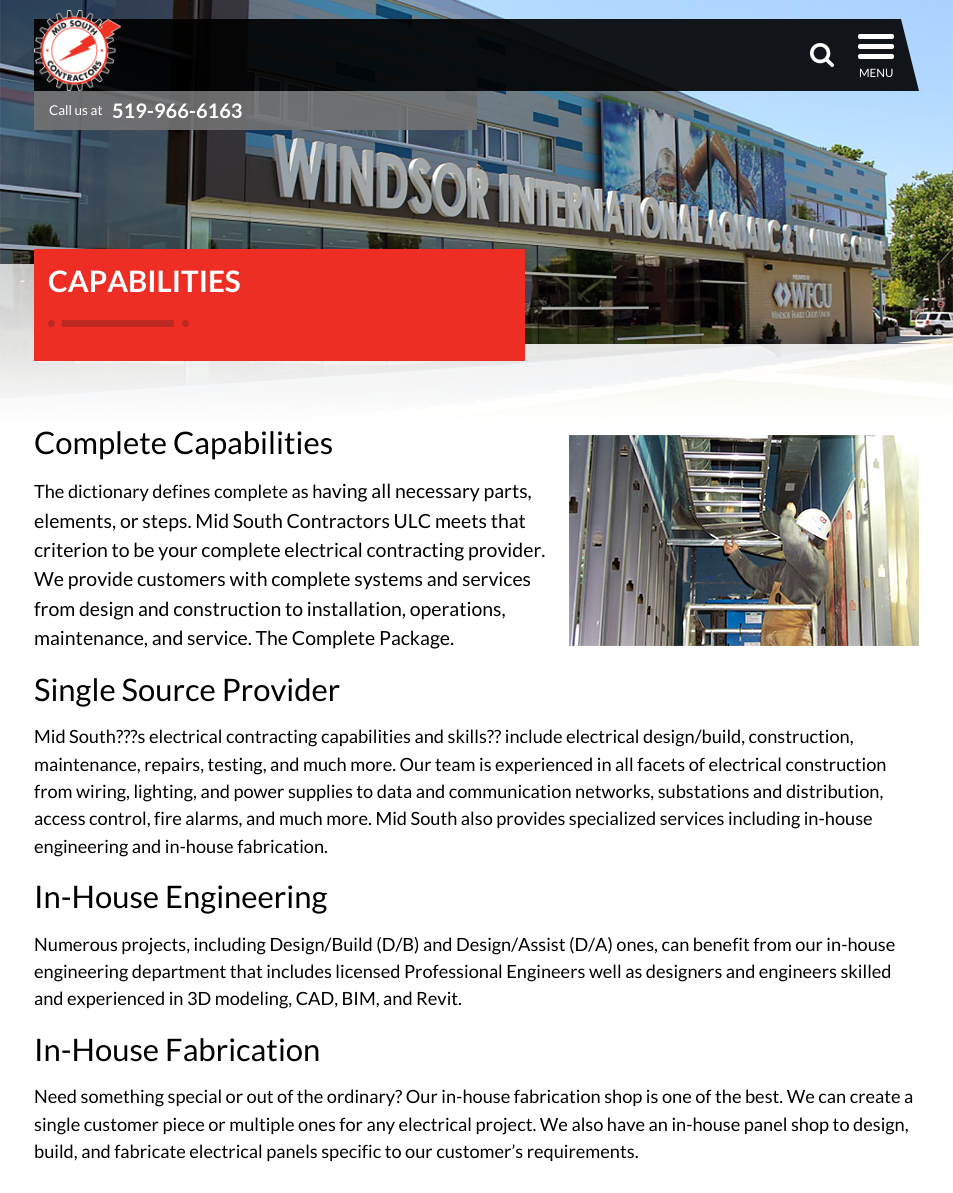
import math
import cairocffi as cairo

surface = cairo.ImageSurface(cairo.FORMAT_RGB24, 953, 1193)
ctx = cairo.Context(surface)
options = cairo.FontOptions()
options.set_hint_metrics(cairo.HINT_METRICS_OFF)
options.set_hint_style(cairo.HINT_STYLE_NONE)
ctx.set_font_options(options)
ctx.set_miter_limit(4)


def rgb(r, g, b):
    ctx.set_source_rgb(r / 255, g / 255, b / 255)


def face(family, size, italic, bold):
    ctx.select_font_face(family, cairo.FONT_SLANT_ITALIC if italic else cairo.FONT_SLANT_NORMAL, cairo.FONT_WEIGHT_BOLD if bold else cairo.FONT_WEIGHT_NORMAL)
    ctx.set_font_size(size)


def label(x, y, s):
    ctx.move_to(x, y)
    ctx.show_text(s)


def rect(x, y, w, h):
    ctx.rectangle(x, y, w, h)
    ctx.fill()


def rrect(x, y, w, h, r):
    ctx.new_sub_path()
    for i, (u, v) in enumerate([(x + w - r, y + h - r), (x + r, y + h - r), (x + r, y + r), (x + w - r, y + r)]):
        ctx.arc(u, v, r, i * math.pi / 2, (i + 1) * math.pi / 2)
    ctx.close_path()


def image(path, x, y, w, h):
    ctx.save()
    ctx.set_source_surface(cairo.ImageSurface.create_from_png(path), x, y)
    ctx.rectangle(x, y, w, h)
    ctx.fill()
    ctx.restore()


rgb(255, 255, 255)
ctx.paint()
image('image2.png', 0, 0, 953, 423)
ctx.set_source_rgba(0, 0, 0, 0.9)
ctx.new_path()
ctx.move_to(34, 19)
ctx.line_to(34, 91)
ctx.line_to(919, 91)
ctx.line_to(901, 19)
ctx.close_path()
ctx.fill()
image('image0.png', 34, 10, 87, 81)
image('image1.png', 810, 43, 24, 24)
rgb(255, 255, 255)
rrect(858, 34, 36, 5, 2)
ctx.fill()
rrect(858, 44, 36, 5, 2)
ctx.fill()
rrect(858, 54, 36, 5, 2)
ctx.fill()
face('Lato', 11.5, 0, 0)
label(859, 77, 'MENU')
ctx.set_source_rgba(0.451, 0.451, 0.451, 0.9)
rect(34, 91, 443, 39)
face('Lato', 13.5, 0, 0)
rgb(255, 255, 255)
label(49, 115, 'Call us at')
face('Lato', 20, 0, 1)
label(112, 118, '519-966-6163')
ctx.set_source_rgba(1, 1, 1, 0.5)
ctx.new_path()
ctx.move_to(0, 264)
ctx.line_to(0, 425)
ctx.line_to(953, 425)
ctx.line_to(953, 344)
ctx.line_to(524, 344)
ctx.line_to(429, 264)
ctx.close_path()
ctx.fill()
gradient = cairo.LinearGradient(477, 264, 477, 425)
gradient.add_color_stop_rgba(0, 1, 1, 1, 0.5)
gradient.add_color_stop_rgba(1, 1, 1, 1, 1)
ctx.set_source(gradient)
ctx.new_path()
ctx.move_to(0, 264)
ctx.line_to(0, 425)
ctx.line_to(953, 425)
ctx.line_to(953, 344)
ctx.line_to(524, 344)
ctx.line_to(429, 264)
ctx.close_path()
ctx.fill()
rgb(238, 46, 36)
rect(34, 249, 491, 112)
face('Lato', 29.5, 0, 1)
rgb(255, 255, 255)
label(48, 292, 'CAPABILITIES')
image('image3.png', 48, 320, 141, 7)
face('Lato', 31, 0, 0)
rgb(0, 0, 0)
label(34, 454, 'Complete Capabilities')
image('image4.png', 569, 435, 350, 211)
face('Lato', 18.2, 0, 0)
label(34, 498, 'The dictionary defines complete as h')
face('Lato', 19.45, 0, 0)
label(322, 498, 'aving all necessary parts,')
label(34, 528, 'elements, or steps. Mid South Contractors ULC meets that')
label(34, 557, 'criterion to be your complete electrical contracting provider.')
label(34, 586, 'We provide customers with complete systems and services')
label(34, 616, 'from design and construction to installation, operations,')
label(34, 645, 'maintenance, and service. The Complete Package.')
face('Lato', 31, 0, 0)
label(34, 701, 'Single Source Provider')
face('Lato', 18.2, 0, 0)
label(34, 743, 'Mid South???s electrical contracting capabilities and skills?? include electrical design/build, construction,')
label(34, 771, 'maintenance, repairs, testing, and much more. Our team is experienced in all facets of electrical construction')
label(34, 798, 'from wiring, lighting, and power supplies to data and communication networks, substations and distribution,')
label(34, 825, 'access control, fire alarms, and much more. Mid South also provides specialized services including in-house')
label(34, 853, 'engineering and in-house fabrication.')
face('Lato', 31, 0, 0)
label(34, 908, 'In-House Engineering')
face('Lato', 18.2, 0, 0)
label(34, 951, 'Numerous projects, including Design/Build (D/B) and Design/Assist (D/A) ones, can benefit from our in-house')
label(34, 978, 'engineering department that includes licensed Professional Engineers well as designers and engineers skilled')
label(34, 1005, 'and experienced in 3D modeling, CAD, BIM, and Revit.')
face('Lato', 31, 0, 0)
label(34, 1061, 'In-House Fabrication')
face('Lato', 18.2, 0, 0)
label(34, 1103, 'Need something special or out of the ordinary? Our in-house fabrication shop is one of the best. We can create a')
label(34, 1131, 'single customer piece or multiple ones for any electrical project. We also have an in-house panel shop to design,')
label(34, 1158, 'build, and fabricate electrical panels specific to our customer’s requirements.')
surface.write_to_png('render.png')
